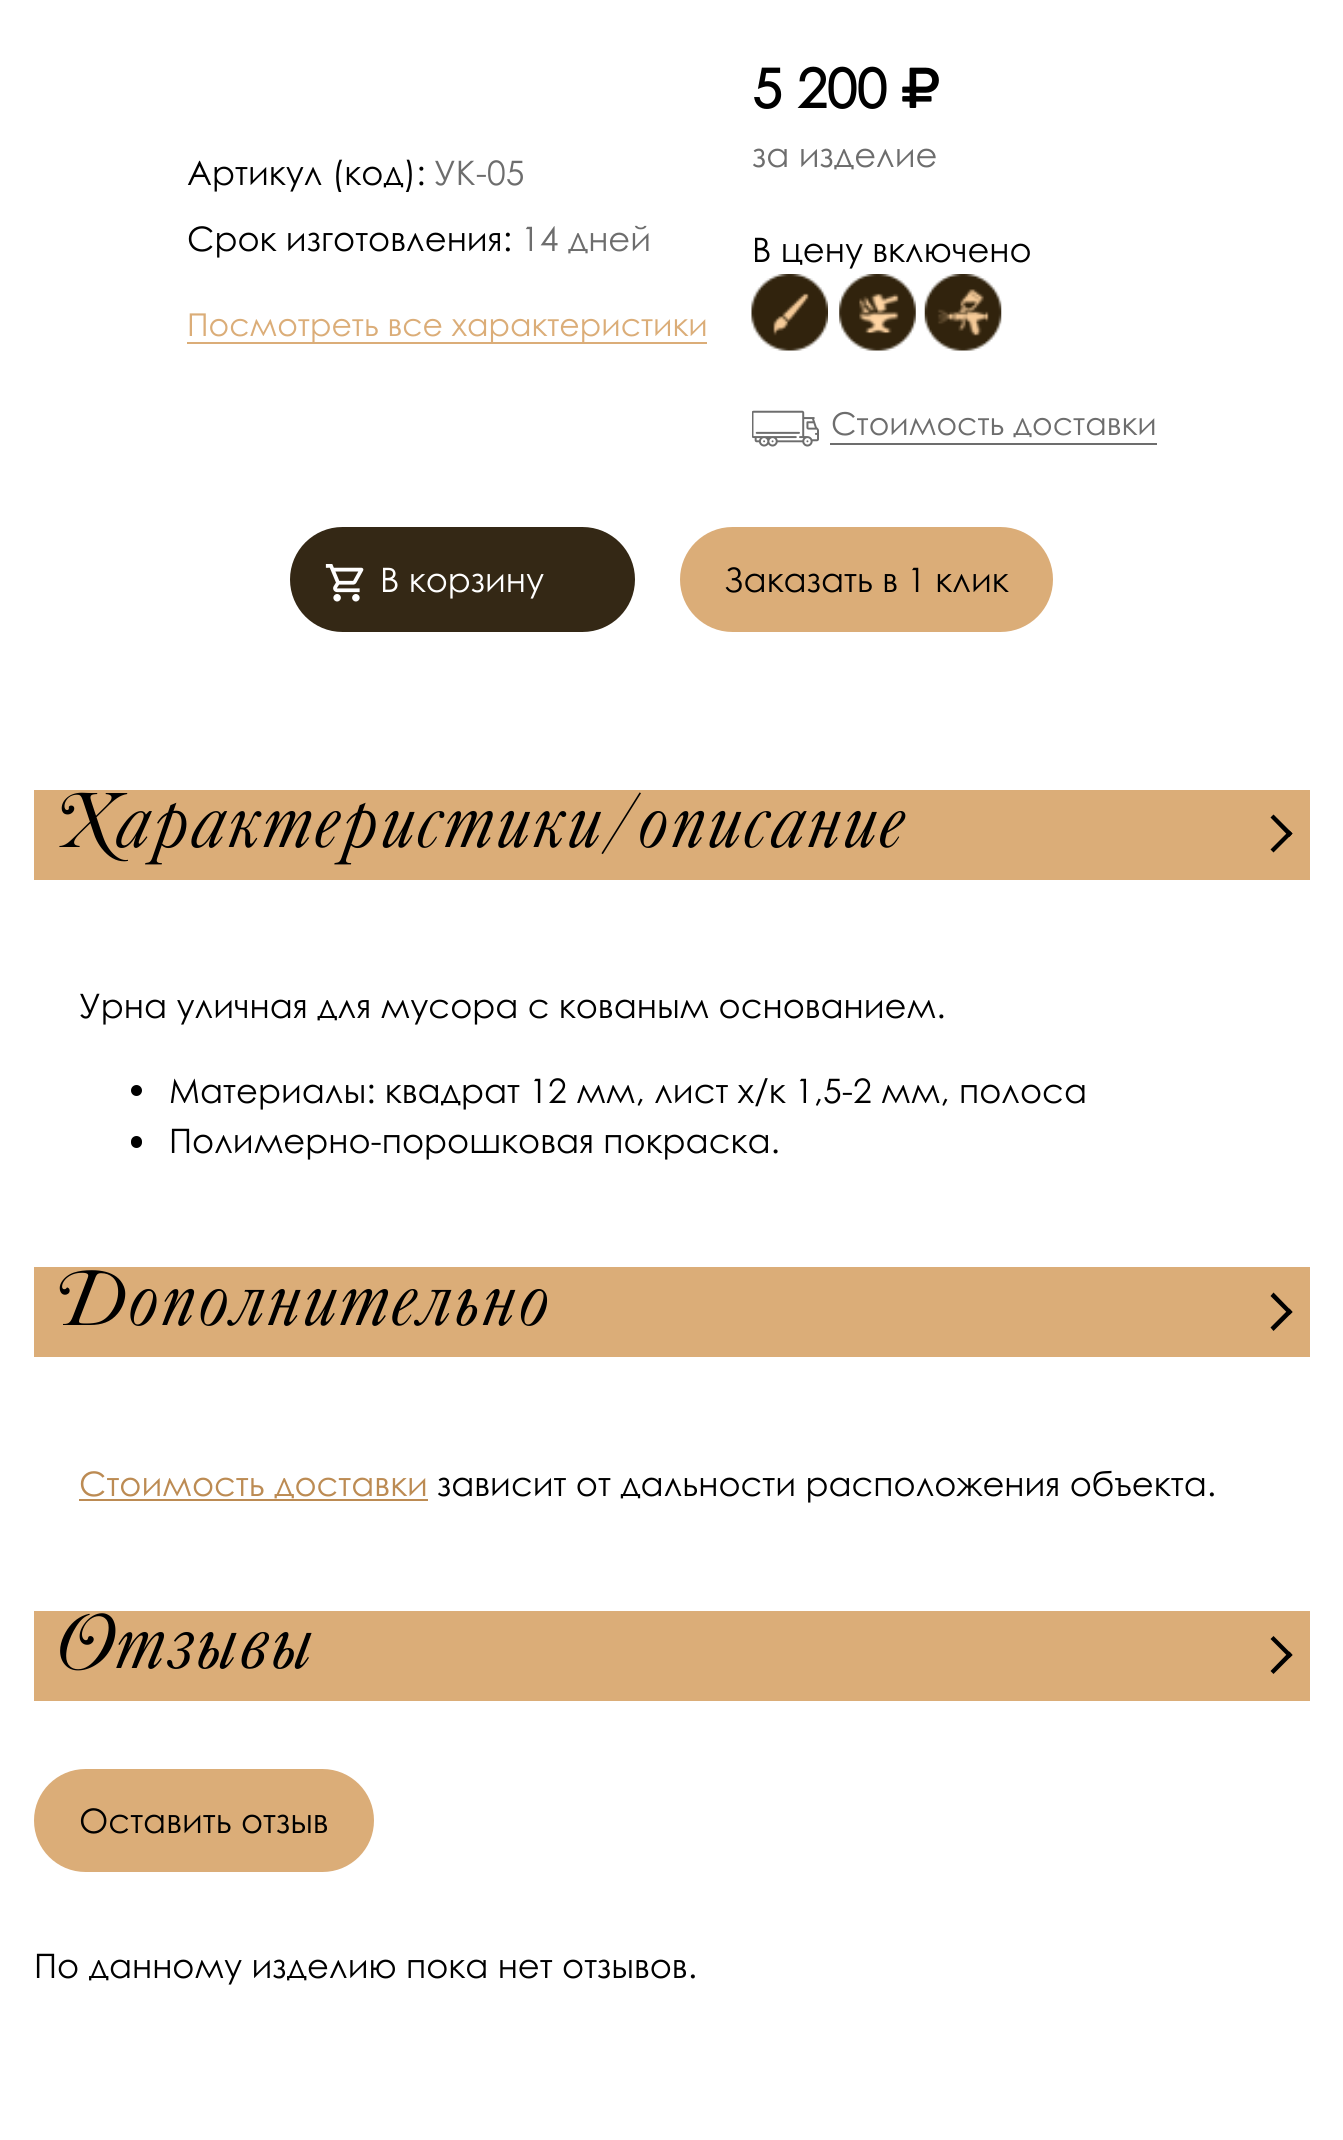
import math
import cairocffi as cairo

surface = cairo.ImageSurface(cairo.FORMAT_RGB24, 1343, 2140)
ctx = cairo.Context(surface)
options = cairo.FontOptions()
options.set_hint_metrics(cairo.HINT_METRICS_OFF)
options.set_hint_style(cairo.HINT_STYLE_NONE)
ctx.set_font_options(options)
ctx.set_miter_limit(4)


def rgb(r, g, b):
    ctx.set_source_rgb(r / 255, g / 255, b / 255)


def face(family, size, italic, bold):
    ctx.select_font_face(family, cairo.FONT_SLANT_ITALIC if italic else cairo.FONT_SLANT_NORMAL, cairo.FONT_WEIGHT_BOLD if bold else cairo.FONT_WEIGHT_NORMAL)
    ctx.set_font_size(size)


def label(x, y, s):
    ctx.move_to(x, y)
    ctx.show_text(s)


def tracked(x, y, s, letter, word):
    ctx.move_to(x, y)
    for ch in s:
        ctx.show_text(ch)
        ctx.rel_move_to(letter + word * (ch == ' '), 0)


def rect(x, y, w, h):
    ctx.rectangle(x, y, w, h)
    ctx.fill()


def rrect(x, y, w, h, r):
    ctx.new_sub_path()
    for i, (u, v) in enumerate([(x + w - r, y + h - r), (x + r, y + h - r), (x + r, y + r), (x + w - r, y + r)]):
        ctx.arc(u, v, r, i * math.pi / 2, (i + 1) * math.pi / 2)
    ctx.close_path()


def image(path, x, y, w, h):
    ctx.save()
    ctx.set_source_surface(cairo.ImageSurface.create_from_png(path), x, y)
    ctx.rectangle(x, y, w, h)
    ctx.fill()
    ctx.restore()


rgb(255, 255, 255)
ctx.paint()
face('Century Gothic', 33.75, 0, 0)
rgb(0, 0, 0)
label(187, 185, 'Артикул (код):')
rgb(109, 109, 109)
label(434, 185, 'УК-05')
rgb(0, 0, 0)
label(187, 251, 'Срок изготовления:')
rgb(109, 109, 109)
label(521, 251, '14 дней')
face('Century Gothic', 31.5, 0, 0)
rgb(219, 173, 120)
label(187, 336, 'Посмотреть все характеристики')
rect(187, 342, 520, 2)
face('Century Gothic', 54, 0, 1)
rgb(0, 0, 0)
label(752, 108, '5 200')
image('image0.png', 902, 67, 37, 41)
face('Century Gothic', 33.75, 0, 0)
rgb(109, 109, 109)
label(752, 167, 'за изделие')
rgb(0, 0, 0)
label(752, 262, 'В цену включено')
image('image1.png', 751, 274, 77, 77)
image('image2.png', 839, 274, 77, 77)
image('image3.png', 924, 274, 78, 77)
image('image4.png', 752, 410, 67, 37)
face('Century Gothic', 31.5, 0, 0)
rgb(109, 109, 109)
label(831, 435, 'Стоимость доставки')
rect(830, 443, 327, 2)
rgb(52, 40, 21)
rrect(290, 527, 345, 105, 52.5)
ctx.fill()
image('image5.png', 325, 564, 39, 38)
face('Century Gothic', 33.75, 0, 0)
rgb(255, 255, 255)
label(380, 592, 'В корзину')
rgb(219, 173, 120)
rrect(680, 527, 373, 105, 52.5)
ctx.fill()
rgb(0, 0, 0)
label(724, 592, 'Заказать в 1 клик')
rgb(219, 173, 120)
rect(34, 790, 1276, 90)
face('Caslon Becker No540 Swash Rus', 81, 1, 0)
rgb(0, 0, 0)
tracked(56, 847, 'Характеристики/описание', 3.4, 0)
ctx.new_path()
ctx.move_to(1273.5, 814.5)
ctx.line_to(1292.5, 833.5)
ctx.line_to(1289.5, 837)
ctx.line_to(1270.5, 817.5)
ctx.close_path()
ctx.fill()
ctx.new_path()
ctx.move_to(1289.5, 830.5)
ctx.line_to(1292.5, 833.5)
ctx.line_to(1273.5, 852.5)
ctx.line_to(1270.5, 849.5)
ctx.close_path()
ctx.fill()
face('Century Gothic', 33.75, 0, 0)
label(79, 1018, 'Урна уличная для мусора с кованым основанием.')
ctx.new_path()
ctx.arc(136.5, 1090.5, 5.5, 0, 2 * math.pi)
ctx.fill()
label(169, 1103, 'Материалы: квадрат 12 мм, лист х/к 1,5-2 мм, полоса')
rrect(131, 1136, 11, 12, 5.5)
ctx.fill()
label(169, 1153, 'Полимерно-порошковая покраска.')
rgb(219, 173, 120)
rect(34, 1267, 1276, 90)
face('Caslon Becker No540 Swash Rus', 81, 1, 0)
rgb(0, 0, 0)
tracked(56, 1325, 'Дополнительно', 3.4, 0)
ctx.new_path()
ctx.move_to(1273.5, 1292.5)
ctx.line_to(1292.5, 1312)
ctx.line_to(1289.5, 1315)
ctx.line_to(1270.5, 1296)
ctx.close_path()
ctx.fill()
ctx.new_path()
ctx.move_to(1289.5, 1308.5)
ctx.line_to(1292.5, 1312)
ctx.line_to(1273.5, 1331)
ctx.line_to(1270.5, 1327.5)
ctx.close_path()
ctx.fill()
face('Century Gothic', 33.75, 0, 0)
rgb(188, 139, 83)
label(79, 1496, 'Стоимость доставки')
rect(79, 1499, 349, 2)
rgb(0, 0, 0)
label(437, 1496, 'зависит от дальности расположения объекта.')
rgb(219, 173, 120)
rect(34, 1611, 1276, 90)
face('Caslon Becker No540 Swash Rus', 81, 1, 0)
rgb(0, 0, 0)
tracked(56, 1668, 'Отзывы', 3.4, 0)
ctx.new_path()
ctx.move_to(1273.5, 1636)
ctx.line_to(1292.5, 1655)
ctx.line_to(1289.5, 1658)
ctx.line_to(1270.5, 1639)
ctx.close_path()
ctx.fill()
ctx.new_path()
ctx.move_to(1289.5, 1651.5)
ctx.line_to(1292.5, 1655)
ctx.line_to(1273.5, 1674)
ctx.line_to(1270.5, 1671)
ctx.close_path()
ctx.fill()
rgb(219, 173, 120)
rrect(34, 1769, 340, 103, 51.5)
ctx.fill()
face('Century Gothic', 33.75, 0, 0)
rgb(0, 0, 0)
label(79, 1833, 'Оставить отзыв')
label(34, 1978, 'По данному изделию пока нет отзывов.')
surface.write_to_png('render.png')
